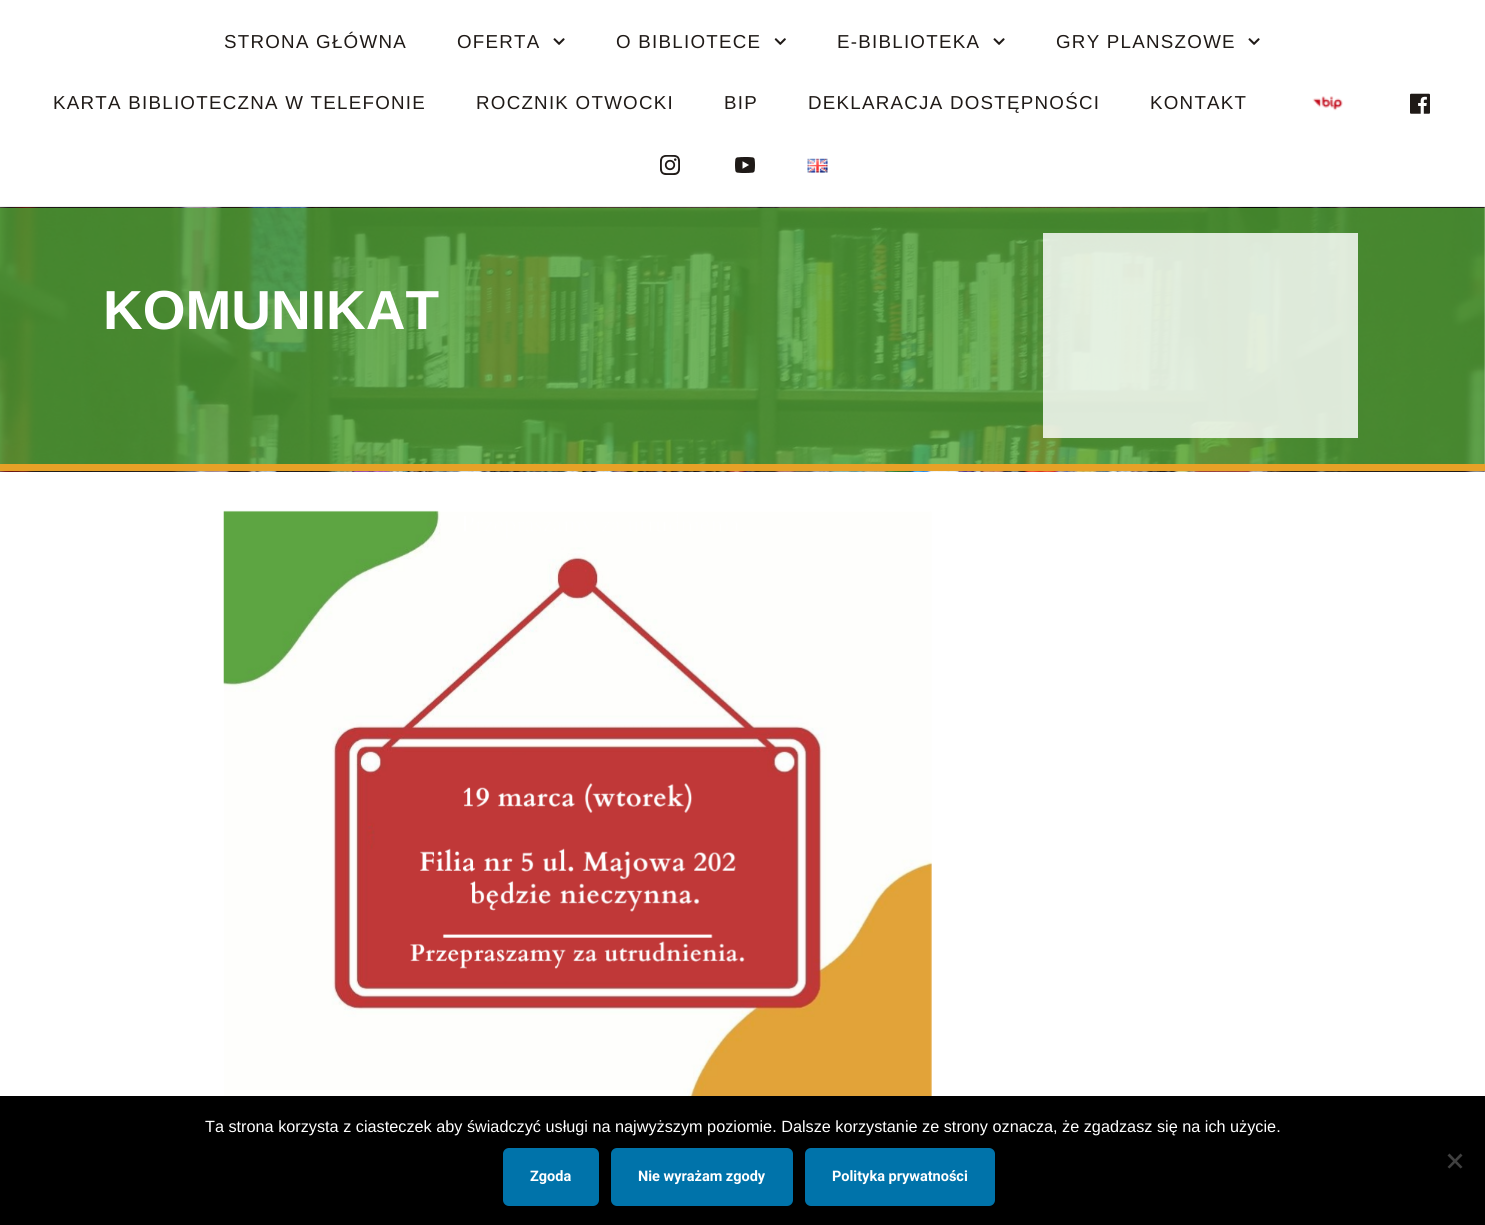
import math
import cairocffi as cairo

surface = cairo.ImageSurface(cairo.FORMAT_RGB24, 1485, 1225)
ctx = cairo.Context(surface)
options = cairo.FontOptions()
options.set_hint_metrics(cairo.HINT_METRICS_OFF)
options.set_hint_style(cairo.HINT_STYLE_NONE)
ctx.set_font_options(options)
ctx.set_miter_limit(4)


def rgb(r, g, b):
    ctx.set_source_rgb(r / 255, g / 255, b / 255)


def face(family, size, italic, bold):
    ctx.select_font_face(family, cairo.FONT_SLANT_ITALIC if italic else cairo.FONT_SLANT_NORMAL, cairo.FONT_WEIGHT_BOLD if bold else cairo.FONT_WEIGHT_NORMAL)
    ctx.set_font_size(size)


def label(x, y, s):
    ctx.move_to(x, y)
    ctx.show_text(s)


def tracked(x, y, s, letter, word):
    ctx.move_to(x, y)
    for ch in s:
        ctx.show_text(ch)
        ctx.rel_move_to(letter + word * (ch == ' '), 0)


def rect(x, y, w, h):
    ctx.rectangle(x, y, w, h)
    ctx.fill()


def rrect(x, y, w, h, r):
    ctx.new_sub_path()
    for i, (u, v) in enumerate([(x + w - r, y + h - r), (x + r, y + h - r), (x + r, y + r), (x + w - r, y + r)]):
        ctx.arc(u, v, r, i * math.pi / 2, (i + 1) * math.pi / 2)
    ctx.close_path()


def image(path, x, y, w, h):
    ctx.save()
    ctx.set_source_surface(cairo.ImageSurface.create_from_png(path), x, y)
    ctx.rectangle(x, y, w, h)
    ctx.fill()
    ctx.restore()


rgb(255, 255, 255)
ctx.paint()
rgb(238, 238, 238)
rect(0, 206, 1485, 1)
face('Liberation Sans', 18.75, 0, 0)
rgb(31, 26, 23)
tracked(224, 48, 'STRONA GŁÓWNA', 1.25, 0)
tracked(457, 48, 'OFERTA', 1.25, 0)
image('image0.png', 553, 38, 12, 7)
tracked(616, 48, 'O BIBLIOTECE', 1.25, 0)
image('image1.png', 774, 38, 12, 7)
tracked(837, 48, 'E-BIBLIOTEKA', 1.25, 0)
image('image0.png', 993, 38, 12, 7)
tracked(1056, 48, 'GRY PLANSZOWE', 1.25, 0)
image('image0.png', 1248, 38, 12, 7)
tracked(53, 109, 'KARTA BIBLIOTECZNA W TELEFONIE', 1.25, 0)
tracked(476, 109, 'ROCZNIK OTWOCKI', 1.25, 0)
tracked(724, 109, 'BIP', 1.25, 0)
tracked(808, 109, 'DEKLARACJA DOSTĘPNOŚCI', 1.25, 0)
tracked(1150, 109, 'KONTAKT', 1.25, 0)
image('image2.png', 1312, 96, 31, 15)
image('image3.png', 1410, 93, 20, 21)
image('image4.png', 660, 155, 20, 20)
image('image5.png', 735, 157, 20, 16)
image('image6.png', 807, 158, 21, 15)
image('image7.png', 0, 207, 1485, 265)
rgb(231, 161, 39)
rect(0, 464, 1485, 7)
face('Liberation Sans', 55, 0, 1)
rgb(255, 255, 255)
label(103, 329, 'KOMUNIKAT')
ctx.set_source_rgba(1, 1, 1, 0.82)
rect(1043, 233, 315, 205)
image('image8.png', 223, 510, 709, 586)
rgb(0, 0, 0)
rect(0, 1096, 1485, 129)
face('Liberation Sans', 16.25, 0, 0)
rgb(255, 255, 255)
label(205, 1132, 'Ta strona korzysta z ciasteczek aby świadczyć usługi na najwyższym poziomie. Dalsze korzystanie ze strony oznacza, że zgadzasz się na ich użycie.')
rgb(64, 64, 64)
ctx.new_path()
ctx.move_to(1460.5, 1153.5)
ctx.line_to(1462.5, 1155.5)
ctx.line_to(1449.5, 1168.5)
ctx.line_to(1447.5, 1167)
ctx.close_path()
ctx.fill()
ctx.new_path()
ctx.move_to(1447.5, 1155.5)
ctx.line_to(1449.5, 1153.5)
ctx.line_to(1462.5, 1167)
ctx.line_to(1460.5, 1168.5)
ctx.close_path()
ctx.fill()
rgb(0, 115, 170)
rrect(503, 1148, 96, 58, 6)
ctx.fill()
face('Roboto', 14.5, 0, 1)
rgb(255, 255, 255)
label(530, 1181, 'Zgoda')
rgb(0, 115, 170)
rrect(611, 1148, 182, 58, 6)
ctx.fill()
rgb(255, 255, 255)
label(638, 1181, 'Nie wyrażam zgody')
rgb(0, 115, 170)
rrect(805, 1148, 190, 58, 6)
ctx.fill()
rgb(255, 255, 255)
label(832, 1181, 'Polityka prywatności')
surface.write_to_png('render.png')
